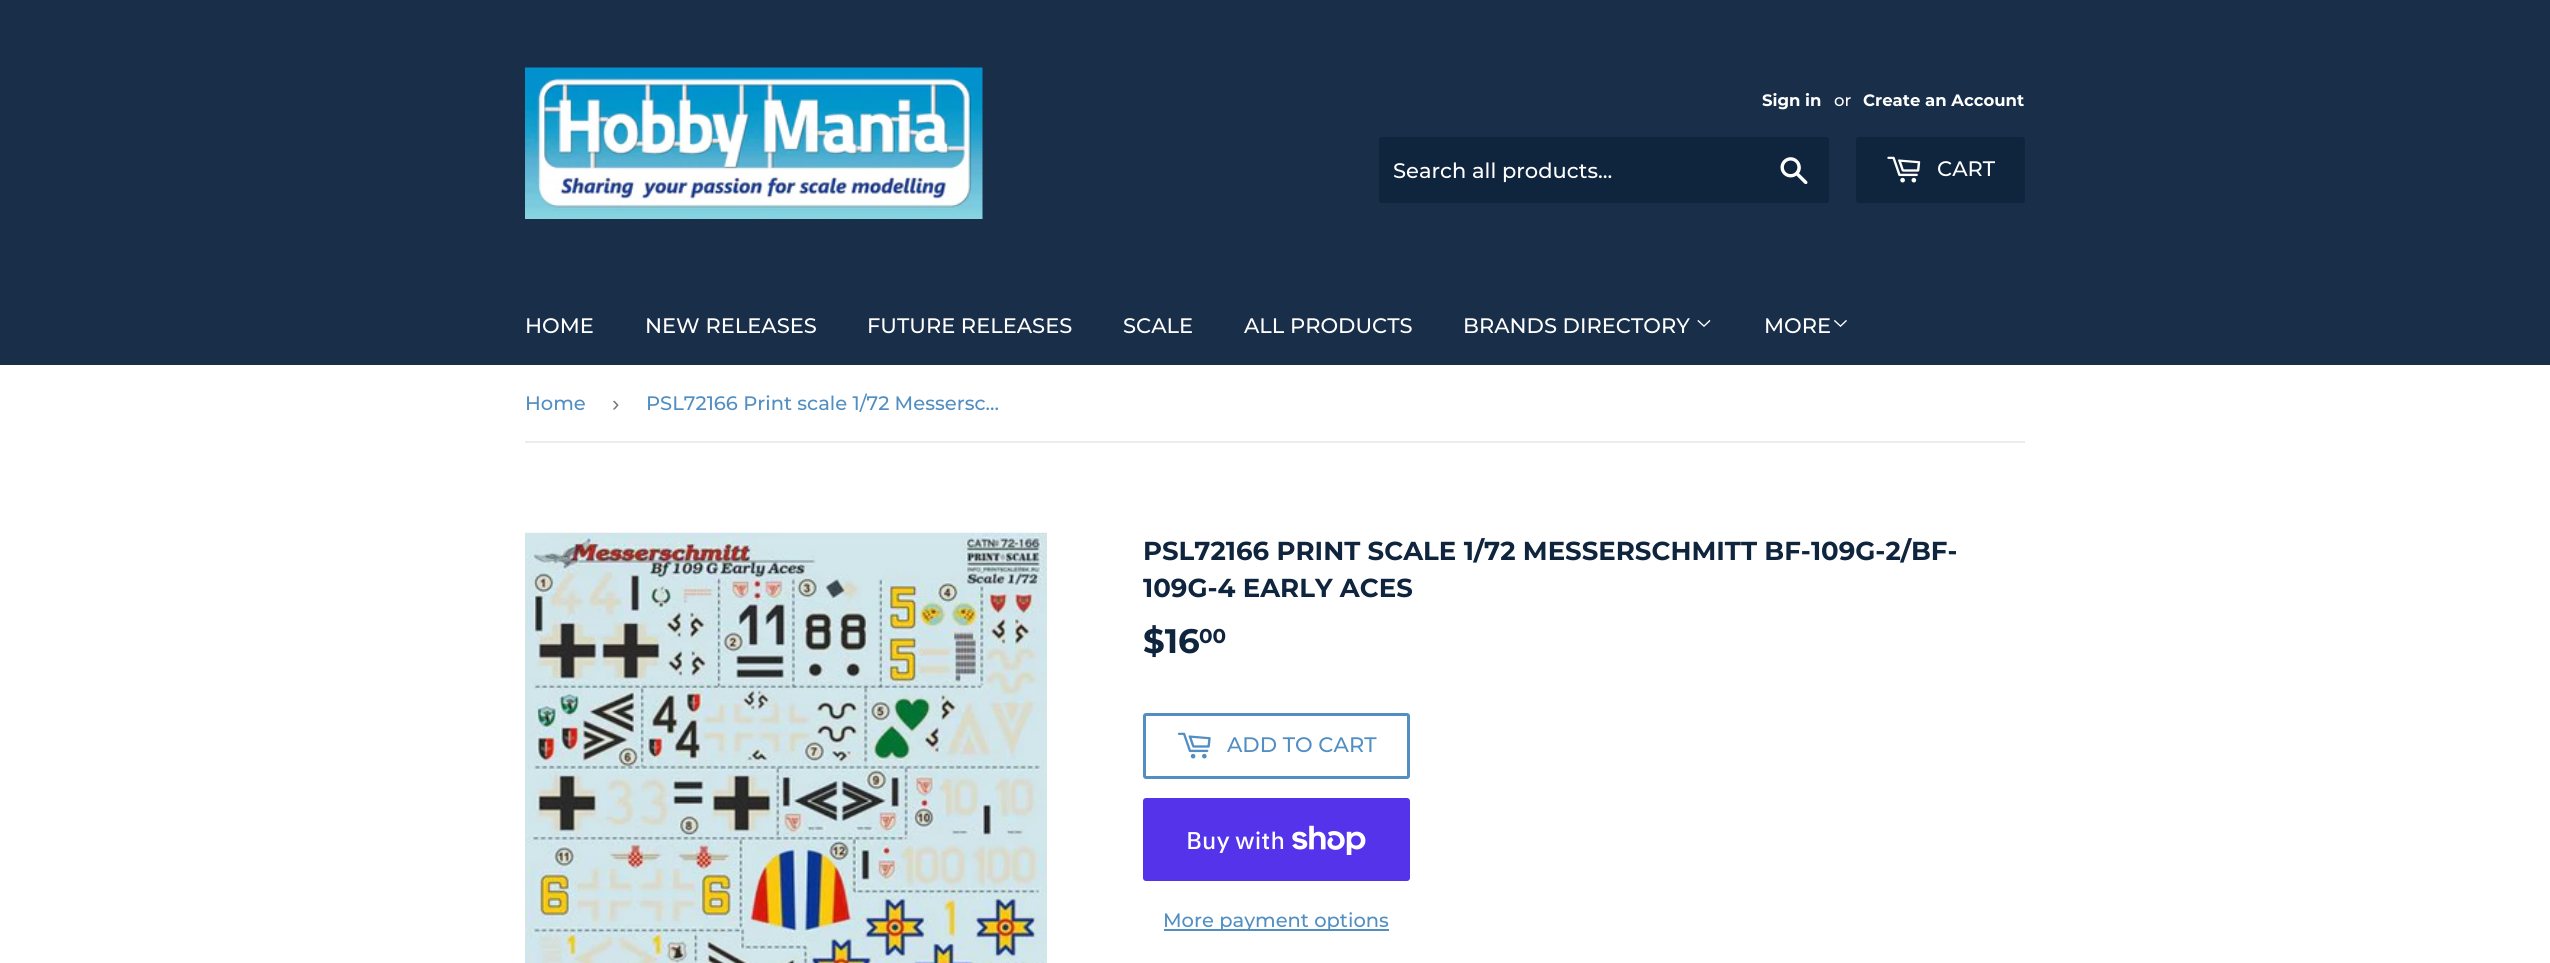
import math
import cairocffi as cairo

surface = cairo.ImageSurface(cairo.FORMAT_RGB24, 2550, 963)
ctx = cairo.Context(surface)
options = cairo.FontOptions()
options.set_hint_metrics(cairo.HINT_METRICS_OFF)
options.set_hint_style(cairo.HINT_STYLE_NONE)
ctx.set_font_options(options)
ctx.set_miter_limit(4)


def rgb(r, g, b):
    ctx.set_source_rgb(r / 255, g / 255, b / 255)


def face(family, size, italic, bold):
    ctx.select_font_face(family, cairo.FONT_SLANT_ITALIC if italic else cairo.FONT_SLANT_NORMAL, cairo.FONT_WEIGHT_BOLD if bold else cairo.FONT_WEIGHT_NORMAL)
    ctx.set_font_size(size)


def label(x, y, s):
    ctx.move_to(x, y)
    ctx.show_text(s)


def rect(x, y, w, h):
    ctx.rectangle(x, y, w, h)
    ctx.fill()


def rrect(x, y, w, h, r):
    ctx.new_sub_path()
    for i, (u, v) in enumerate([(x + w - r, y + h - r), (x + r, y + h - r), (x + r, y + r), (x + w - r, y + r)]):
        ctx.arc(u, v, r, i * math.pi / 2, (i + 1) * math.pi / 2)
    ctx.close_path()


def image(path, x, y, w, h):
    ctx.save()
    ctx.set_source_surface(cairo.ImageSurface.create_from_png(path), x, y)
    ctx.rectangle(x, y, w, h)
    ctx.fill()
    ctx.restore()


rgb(255, 255, 255)
ctx.paint()
rgb(24, 46, 73)
rect(0, 0, 2550, 365)
image('image0.png', 525, 67, 458, 152)
face('Montserrat', 16.5, 0, 1)
rgb(255, 255, 255)
label(1762, 106, 'Sign in')
face('Montserrat Medium', 16.5, 0, 0)
label(1834, 106, 'or')
face('Montserrat', 16.5, 0, 1)
label(1863, 106, 'Create an Account')
rgb(15, 36, 61)
rrect(1379, 137, 450, 66, 3)
ctx.fill()
face('Montserrat Medium', 21, 0, 0)
rgb(255, 255, 255)
label(1393, 178, 'Search all products...')
image('image1.png', 1780, 157, 28, 28)
rgb(15, 36, 61)
rrect(1856, 137, 169, 66, 3)
ctx.fill()
image('image2.png', 1887, 156, 34, 27)
rgb(255, 255, 255)
label(1937, 176, 'CART')
label(525, 333, 'HOME')
label(645, 333, 'NEW RELEASES')
label(867, 333, 'FUTURE RELEASES')
label(1123, 333, 'SCALE')
label(1244, 333, 'ALL PRODUCTS')
label(1463, 333, 'BRANDS DIRECTORY')
image('image3.png', 1697, 320, 14, 7)
label(1764, 333, 'MORE')
image('image4.png', 1834, 320, 13, 7)
rgb(236, 236, 236)
rect(525, 441, 1500, 2)
face('Montserrat Medium', 19.5, 0, 0)
rgb(82, 142, 193)
label(525, 410, 'Home')
face('Liberation Sans', 22, 0, 0)
rgb(118, 118, 118)
label(612, 411, '›')
face('Montserrat Medium', 19.5, 0, 0)
rgb(82, 142, 193)
label(646, 410, 'PSL72166 Print scale 1/72 Messersc…')
image('image5.png', 525, 532, 522, 431)
face('Montserrat', 26, 0, 1)
rgb(15, 36, 61)
label(1143, 560, 'PSL72166 PRINT SCALE 1/72 MESSERSCHMITT BF-109G-2/BF-')
label(1143, 597, '109G-4 EARLY ACES')
face('Montserrat', 34, 0, 1)
label(1143, 653, '$16')
face('Montserrat', 20, 0, 1)
label(1199, 643, '00')
rrect(1144.5, 714.5, 264, 63, 1.5)
rgb(82, 142, 193)
ctx.set_line_width(3)
ctx.stroke()
image('image6.png', 1177, 732, 34, 27)
face('Montserrat Medium', 21, 0, 0)
label(1227, 752, 'ADD TO CART')
rgb(84, 51, 235)
rrect(1143, 798, 267, 83, 3)
ctx.fill()
face('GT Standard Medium', 24, 0, 0)
rgb(255, 255, 255)
label(1186, 849, 'Buy with')
image('image7.png', 1292, 825, 74, 30)
rgb(82, 142, 193)
rect(1164, 929, 225, 2)
face('Montserrat Medium', 19.5, 0, 0)
label(1163, 927, 'More payment options')
surface.write_to_png('render.png')
